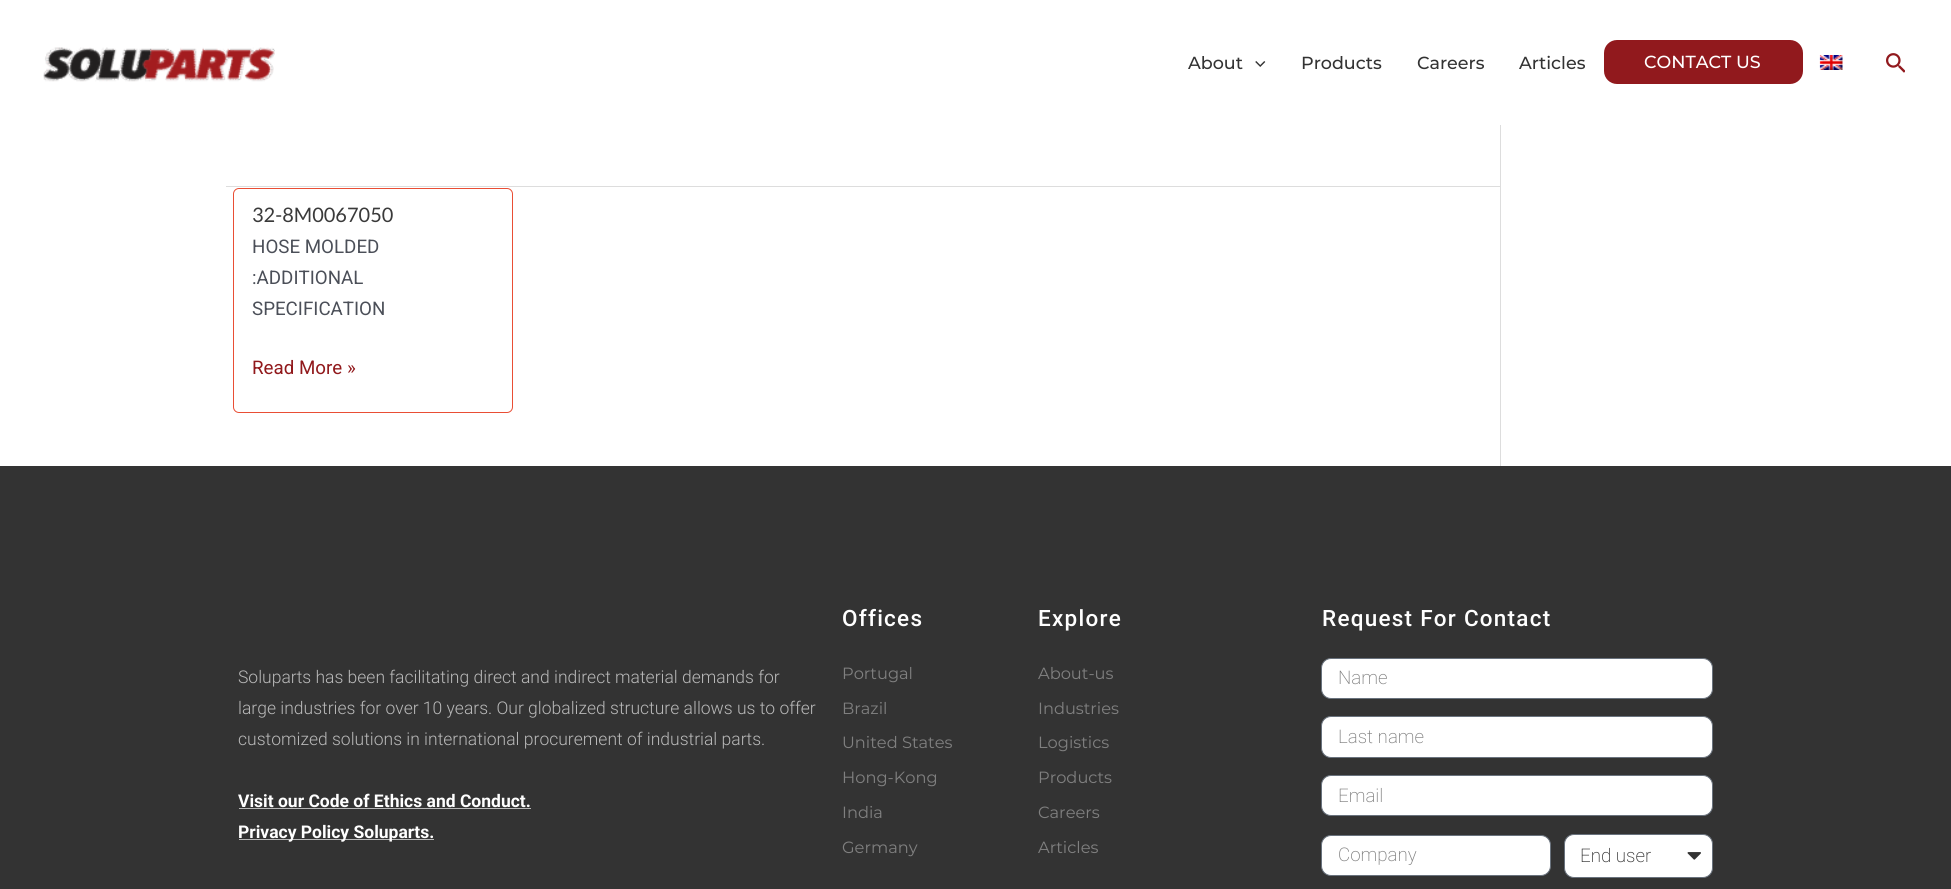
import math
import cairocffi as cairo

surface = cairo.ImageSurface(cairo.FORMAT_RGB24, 1951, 889)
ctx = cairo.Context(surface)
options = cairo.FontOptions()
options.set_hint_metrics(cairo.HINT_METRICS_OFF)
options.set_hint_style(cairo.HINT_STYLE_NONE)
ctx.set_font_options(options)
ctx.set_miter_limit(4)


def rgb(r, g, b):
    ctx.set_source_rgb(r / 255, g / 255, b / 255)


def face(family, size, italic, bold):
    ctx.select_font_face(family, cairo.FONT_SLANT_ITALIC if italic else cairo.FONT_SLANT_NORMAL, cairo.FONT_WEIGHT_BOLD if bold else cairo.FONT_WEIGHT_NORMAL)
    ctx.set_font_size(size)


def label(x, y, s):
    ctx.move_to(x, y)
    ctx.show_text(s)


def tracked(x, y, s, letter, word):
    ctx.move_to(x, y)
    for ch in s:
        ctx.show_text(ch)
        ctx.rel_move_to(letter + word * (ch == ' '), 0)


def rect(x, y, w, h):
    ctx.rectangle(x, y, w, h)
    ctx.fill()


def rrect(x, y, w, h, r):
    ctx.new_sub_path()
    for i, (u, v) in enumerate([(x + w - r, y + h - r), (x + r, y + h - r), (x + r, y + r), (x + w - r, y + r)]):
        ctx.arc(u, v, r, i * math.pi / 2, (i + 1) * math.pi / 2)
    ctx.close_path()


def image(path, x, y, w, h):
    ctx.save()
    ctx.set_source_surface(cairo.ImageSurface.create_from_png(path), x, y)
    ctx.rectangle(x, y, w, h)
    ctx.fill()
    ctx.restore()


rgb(255, 255, 255)
ctx.paint()
image('image0.png', 43, 47, 232, 35)
face('Montserrat Medium', 17.5, 0, 0)
rgb(51, 51, 51)
label(1188, 69, 'About')
image('image1.png', 1255, 61, 11, 6)
label(1301, 69, 'Products')
label(1417, 69, 'Careers')
label(1519, 69, 'Articles')
rgb(145, 25, 29)
rrect(1608.5, 44.5, 190, 35, 8.5)
ctx.fill_preserve()
ctx.set_line_width(9)
ctx.stroke()
rgb(255, 255, 255)
label(1644, 68, 'CONTACT US')
image('image2.png', 1819, 55, 24, 15)
image('image3.png', 1886, 53, 19, 20)
rgb(221, 221, 221)
rect(1500, 125, 1, 341)
rect(226, 186, 1274, 1)
rrect(233.5, 188.5, 279, 224, 5.5)
rgb(233, 78, 53)
ctx.set_line_width(1)
ctx.stroke()
face('Lato', 20, 0, 0)
rgb(58, 58, 58)
label(252, 222, '32-8M0067050')
face('Roboto', 18.75, 0, 0)
rgb(75, 79, 88)
label(252, 253, 'HOSE MOLDED')
label(252, 284, ':ADDITIONAL')
label(252, 315, 'SPECIFICATION')
rgb(145, 25, 28)
label(252, 374, 'Read More »')
rgb(51, 51, 51)
rect(0, 466, 1951, 423)
face('Roboto Light', 17.5, 0, 0)
rgb(184, 184, 184)
label(238, 683, 'Soluparts has been facilitating direct and indirect material demands for')
label(238, 714, 'large industries for over 10 years. Our globalized structure allows us to offer')
label(238, 745, 'customized solutions in international procurement of industrial parts.')
face('Roboto', 17.5, 0, 1)
rgb(255, 255, 255)
label(238, 807, 'Visit our Code of Ethics and Conduct.')
rgb(184, 184, 184)
rect(239, 808, 292, 1)
rect(239, 839, 195, 1)
rgb(255, 255, 255)
label(238, 838, 'Privacy Policy Soluparts.')
face('Roboto Medium', 22.5, 0, 0)
tracked(842, 626, 'Offices', 1.25, 0)
face('Montserrat', 16.25, 0, 0)
rgb(128, 128, 128)
label(842, 679, 'Portugal')
label(842, 714, 'Brazil')
label(842, 748, 'United States')
label(842, 783, 'Hong-Kong')
label(842, 818, 'India')
label(842, 853, 'Germany')
face('Roboto Medium', 22.5, 0, 0)
rgb(255, 255, 255)
tracked(1038, 626, 'Explore', 1.25, 0)
face('Montserrat', 16.25, 0, 0)
rgb(128, 128, 128)
label(1038, 679, 'About-us')
label(1038, 714, 'Industries')
label(1038, 748, 'Logistics')
label(1038, 783, 'Products')
label(1038, 818, 'Careers')
label(1038, 853, 'Articles')
face('Roboto Medium', 22.5, 0, 0)
rgb(255, 255, 255)
tracked(1322, 626, 'Request For Contact', 1.25, 0)
rrect(1321.5, 658.5, 391, 40, 9.5)
ctx.fill_preserve()
rgb(105, 114, 125)
ctx.stroke()
face('Roboto ExtraLight', 18.75, 0, 0)
rgb(128, 128, 128)
label(1338, 684, 'Name')
rgb(255, 255, 255)
rrect(1321.5, 716.5, 391, 41, 9.5)
ctx.fill_preserve()
rgb(105, 114, 125)
ctx.stroke()
rgb(128, 128, 128)
label(1338, 743, 'Last name')
rgb(255, 255, 255)
rrect(1321.5, 775.5, 391, 40, 9.5)
ctx.fill_preserve()
rgb(105, 114, 125)
ctx.stroke()
rgb(128, 128, 128)
label(1338, 802, 'Email')
rgb(255, 255, 255)
rrect(1321.5, 835.5, 229, 40, 9.5)
ctx.fill_preserve()
rgb(105, 114, 125)
ctx.stroke()
rgb(128, 128, 128)
label(1338, 861, 'Company')
rgb(255, 255, 255)
rrect(1564.5, 834.5, 148, 43, 9.5)
ctx.fill_preserve()
rgb(105, 114, 125)
ctx.stroke()
rgb(51, 51, 51)
label(1580, 862, 'End user')
image('image4.png', 1687, 852, 14, 8)
surface.write_to_png('render.png')
